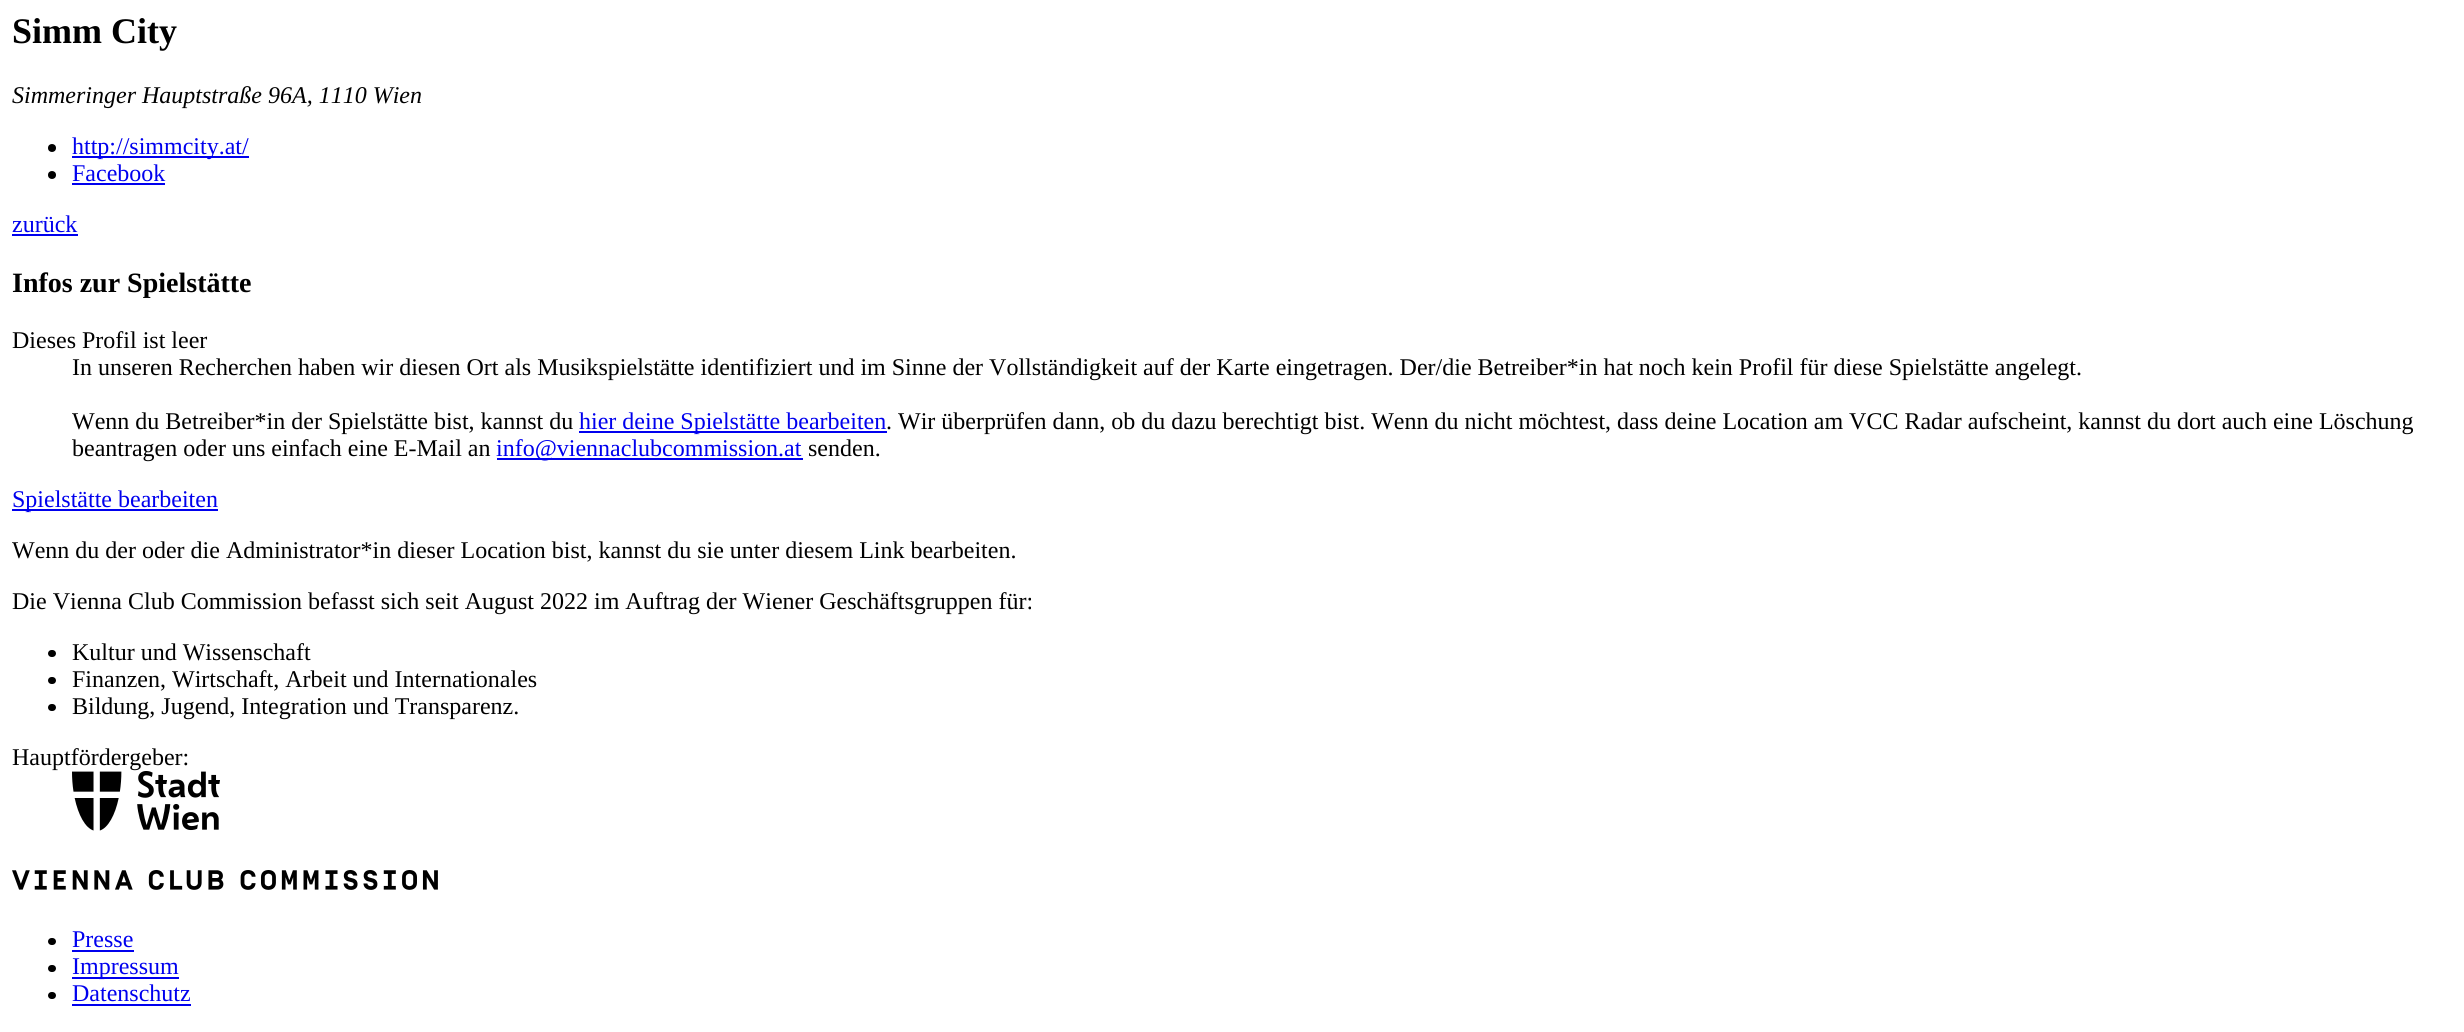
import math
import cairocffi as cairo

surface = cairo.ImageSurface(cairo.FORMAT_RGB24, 2464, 1032)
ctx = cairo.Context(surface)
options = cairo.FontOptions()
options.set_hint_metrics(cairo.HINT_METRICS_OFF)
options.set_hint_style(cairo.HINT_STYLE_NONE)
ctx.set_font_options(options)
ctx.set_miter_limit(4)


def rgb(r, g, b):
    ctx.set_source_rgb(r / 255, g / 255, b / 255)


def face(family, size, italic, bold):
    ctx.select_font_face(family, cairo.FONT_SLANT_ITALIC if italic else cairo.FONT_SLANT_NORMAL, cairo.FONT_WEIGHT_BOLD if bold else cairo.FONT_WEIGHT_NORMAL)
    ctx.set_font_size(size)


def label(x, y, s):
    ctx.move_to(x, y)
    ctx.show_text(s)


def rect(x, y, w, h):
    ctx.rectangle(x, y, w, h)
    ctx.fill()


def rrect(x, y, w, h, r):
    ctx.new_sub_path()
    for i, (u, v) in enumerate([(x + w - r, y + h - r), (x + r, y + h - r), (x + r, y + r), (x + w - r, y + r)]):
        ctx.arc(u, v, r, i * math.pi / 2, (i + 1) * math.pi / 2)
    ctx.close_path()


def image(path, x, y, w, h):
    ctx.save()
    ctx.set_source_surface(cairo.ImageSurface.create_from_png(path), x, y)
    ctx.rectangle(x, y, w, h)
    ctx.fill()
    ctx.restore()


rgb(255, 255, 255)
ctx.paint()
face('Liberation Serif', 36, 0, 1)
rgb(0, 0, 0)
label(12, 43, 'Simm City')
face('Liberation Serif', 24, 1, 0)
label(12, 103, 'Simmeringer Hauptstraße 96A, 1110 Wien')
ctx.new_path()
ctx.arc(52, 148, 4, 0, 2 * math.pi)
ctx.fill()
rgb(0, 0, 238)
rect(72, 156, 177, 2)
face('Liberation Serif', 24, 0, 0)
label(72, 154, 'http://simmcity.at/')
rgb(0, 0, 0)
ctx.new_path()
ctx.arc(52, 175, 4, 0, 2 * math.pi)
ctx.fill()
rgb(0, 0, 238)
label(72, 181, 'Facebook')
rect(72, 183, 93, 2)
label(12, 232, 'zurück')
rect(12, 234, 66, 2)
face('Liberation Serif', 28, 0, 1)
rgb(0, 0, 0)
label(12, 292, 'Infos zur Spielstätte')
face('Liberation Serif', 24, 0, 0)
label(12, 348, 'Dieses Profil ist leer')
label(72, 375, 'In unseren Recherchen haben wir diesen Ort als Musikspielstätte identifiziert und im Sinne der Vollständigkeit auf der Karte eingetragen. Der/die Betreiber*in hat noch kein Profil für diese Spielstätte angelegt.')
label(72, 429, 'Wenn du Betreiber*in der Spielstätte bist, kannst du')
rgb(0, 0, 238)
rect(579, 431, 308, 2)
label(579, 429, 'hier deine Spielstätte bearbeiten')
rgb(0, 0, 0)
label(886, 429, '. Wir überprüfen dann, ob du dazu berechtigt bist. Wenn du nicht möchtest, dass deine Location am VCC Radar aufscheint, kannst du dort auch eine Löschung')
label(72, 456, 'beantragen oder uns einfach eine E-Mail an')
rgb(0, 0, 238)
rect(497, 458, 306, 2)
label(496, 456, 'info@viennaclubcommission.at')
rgb(0, 0, 0)
label(808, 456, 'senden.')
rgb(0, 0, 238)
rect(12, 509, 206, 2)
label(12, 507, 'Spielstätte bearbeiten')
rgb(0, 0, 0)
label(12, 558, 'Wenn du der oder die Administrator*in dieser Location bist, kannst du sie unter diesem Link bearbeiten.')
label(12, 609, 'Die Vienna Club Commission befasst sich seit August 2022 im Auftrag der Wiener Geschäftsgruppen für:')
rrect(48, 650, 8, 7, 3.5)
ctx.fill()
label(72, 660, 'Kultur und Wissenschaft')
rrect(48, 677, 8, 7, 3.5)
ctx.fill()
label(72, 687, 'Finanzen, Wirtschaft, Arbeit und Internationales')
rrect(48, 704, 8, 7, 3.5)
ctx.fill()
label(72, 714, 'Bildung, Jugend, Integration und Transparenz.')
label(12, 765, 'Hauptfördergeber:')
image('image0.png', 72, 771, 148, 60)
image('image1.png', 12, 870, 426, 20)
rrect(48, 938, 8, 7, 3.5)
ctx.fill()
rgb(0, 0, 238)
label(72, 947, 'Presse')
rect(72, 950, 62, 2)
rgb(0, 0, 0)
rrect(48, 965, 8, 7, 3.5)
ctx.fill()
rgb(0, 0, 238)
rect(72, 977, 107, 2)
label(72, 974, 'Impressum')
rgb(0, 0, 0)
rrect(48, 992, 8, 7, 3.5)
ctx.fill()
rgb(0, 0, 238)
label(72, 1001, 'Datenschutz')
rect(72, 1004, 119, 2)
surface.write_to_png('render.png')
